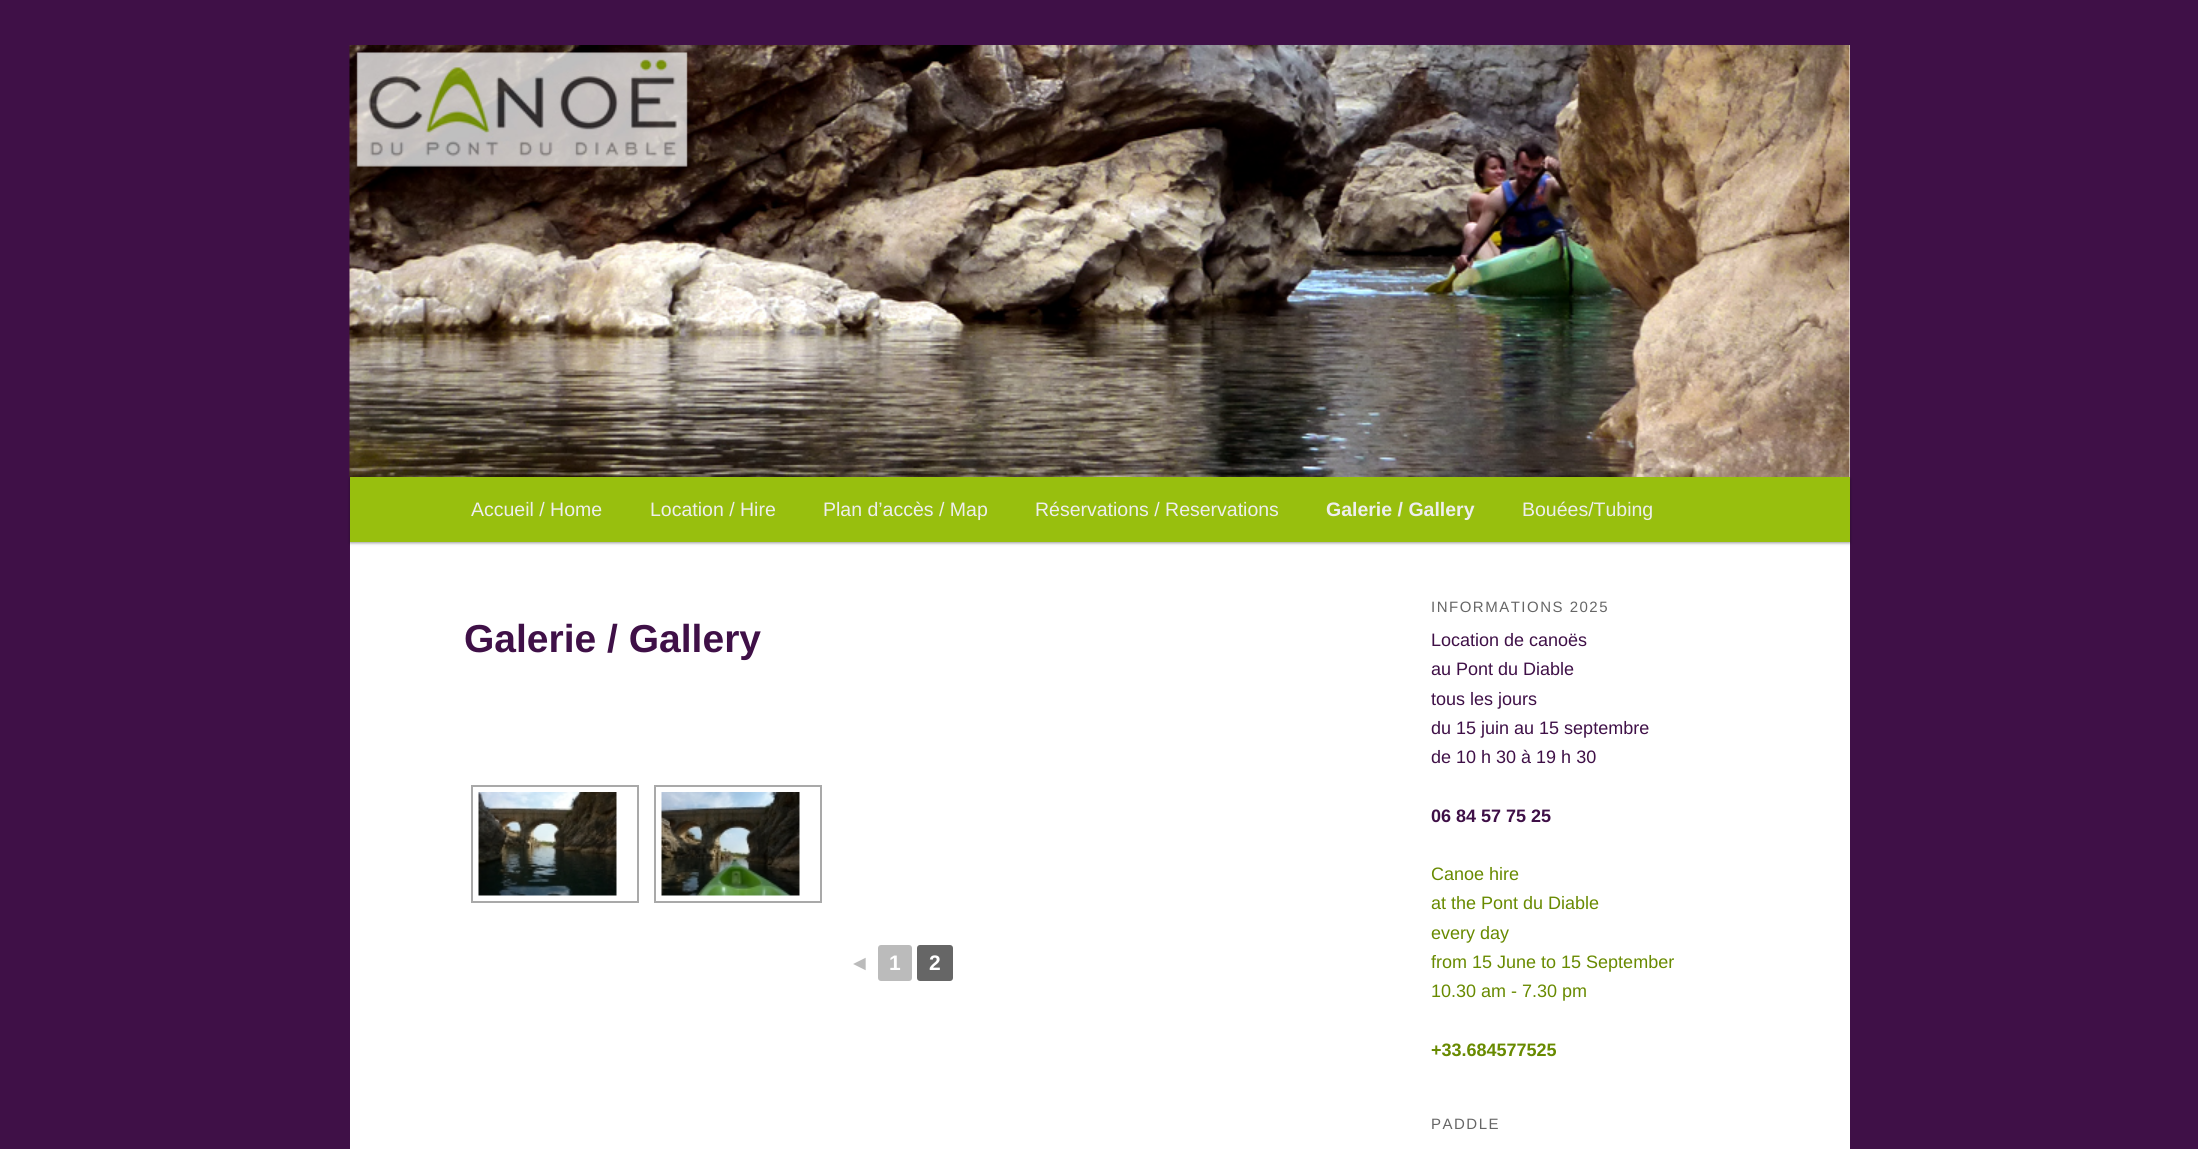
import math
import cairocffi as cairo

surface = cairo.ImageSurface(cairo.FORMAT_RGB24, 2198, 1149)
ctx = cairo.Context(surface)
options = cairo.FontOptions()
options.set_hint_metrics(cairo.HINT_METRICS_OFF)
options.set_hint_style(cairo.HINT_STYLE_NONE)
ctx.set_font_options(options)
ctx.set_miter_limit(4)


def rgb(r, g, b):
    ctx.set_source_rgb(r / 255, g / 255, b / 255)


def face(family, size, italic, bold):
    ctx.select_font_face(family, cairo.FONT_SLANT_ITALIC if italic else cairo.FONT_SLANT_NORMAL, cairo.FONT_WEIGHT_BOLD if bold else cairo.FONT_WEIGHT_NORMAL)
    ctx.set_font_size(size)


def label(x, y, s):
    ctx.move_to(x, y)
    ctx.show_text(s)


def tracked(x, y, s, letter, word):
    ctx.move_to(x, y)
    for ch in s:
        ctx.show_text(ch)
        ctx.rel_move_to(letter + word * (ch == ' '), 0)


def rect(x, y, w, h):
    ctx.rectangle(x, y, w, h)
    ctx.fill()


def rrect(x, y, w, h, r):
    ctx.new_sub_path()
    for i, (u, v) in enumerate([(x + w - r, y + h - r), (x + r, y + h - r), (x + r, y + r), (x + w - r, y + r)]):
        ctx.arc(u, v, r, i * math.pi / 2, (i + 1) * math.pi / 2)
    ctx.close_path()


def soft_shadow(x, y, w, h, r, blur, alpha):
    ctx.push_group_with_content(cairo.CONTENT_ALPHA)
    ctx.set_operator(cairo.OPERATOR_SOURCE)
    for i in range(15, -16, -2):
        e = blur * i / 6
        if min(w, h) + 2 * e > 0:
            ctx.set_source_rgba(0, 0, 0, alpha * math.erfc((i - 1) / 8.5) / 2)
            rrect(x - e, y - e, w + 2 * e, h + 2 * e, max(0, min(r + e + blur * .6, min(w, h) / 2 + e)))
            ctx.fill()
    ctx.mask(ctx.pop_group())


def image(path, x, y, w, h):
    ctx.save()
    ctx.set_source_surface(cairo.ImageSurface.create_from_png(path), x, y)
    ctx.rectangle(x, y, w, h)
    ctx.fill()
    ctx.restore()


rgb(63, 16, 71)
ctx.paint()
rgb(255, 255, 255)
rect(350, 45, 1500, 1104)
rgb(0, 0, 0)
soft_shadow(350, 479, 1500, 64, 0, 1.5, 0.4)
image('image0.png', 349, 45, 1501, 432)
rgb(152, 191, 14)
rect(350, 477, 1500, 65)
face('Liberation Sans', 19.5, 0, 0)
rgb(238, 238, 238)
label(471, 516, 'Accueil / Home')
label(650, 516, 'Location / Hire')
label(823, 516, 'Plan d’accès / Map')
label(1035, 516, 'Réservations / Reservations')
face('Liberation Sans', 19.5, 0, 1)
label(1326, 516, 'Galerie / Gallery')
face('Liberation Sans', 19.5, 0, 0)
label(1522, 516, 'Bouées/Tubing')
face('Liberation Sans', 39, 0, 1)
rgb(63, 16, 71)
label(464, 652, 'Galerie / Gallery')
ctx.rectangle(472, 786, 166, 116)
rgb(169, 169, 169)
ctx.stroke()
image('image1.png', 478, 792, 139, 104)
ctx.rectangle(655, 786, 166, 116)
ctx.stroke()
image('image2.png', 661, 792, 139, 104)
face('Liberation Sans', 21, 0, 1)
rgb(187, 187, 187)
label(849, 970, '◄')
rrect(878, 945, 34, 36, 3)
ctx.fill()
rgb(255, 255, 255)
label(889, 970, '1')
rgb(102, 102, 102)
rrect(917, 945, 36, 36, 3)
ctx.fill()
rgb(255, 255, 255)
label(929, 970, '2')
face('Liberation Sans', 15, 0, 0)
rgb(102, 102, 102)
tracked(1431, 612, 'INFORMATIONS 2025', 1.5, 0)
face('Liberation Sans', 18, 0, 0)
rgb(63, 16, 71)
label(1431, 646, 'Location de canoës')
label(1431, 675, 'au Pont du Diable')
label(1431, 705, 'tous les jours')
label(1431, 734, 'du 15 juin au 15 septembre')
label(1431, 763, 'de 10 h 30 à 19 h 30')
face('Liberation Sans', 18, 0, 1)
label(1431, 822, '06 84 57 75 25')
face('Liberation Sans', 18, 0, 0)
rgb(104, 138, 0)
label(1431, 880, 'Canoe hire')
label(1431, 909, 'at the Pont du Diable')
label(1431, 939, 'every day')
label(1431, 968, 'from 15 June to 15 September')
label(1431, 997, '10.30 am - 7.30 pm')
face('Liberation Sans', 18, 0, 1)
label(1431, 1056, '+33.684577525')
face('Liberation Sans', 15, 0, 0)
rgb(102, 102, 102)
tracked(1431, 1129, 'PADDLE', 1.5, 0)
surface.write_to_png('render.png')
